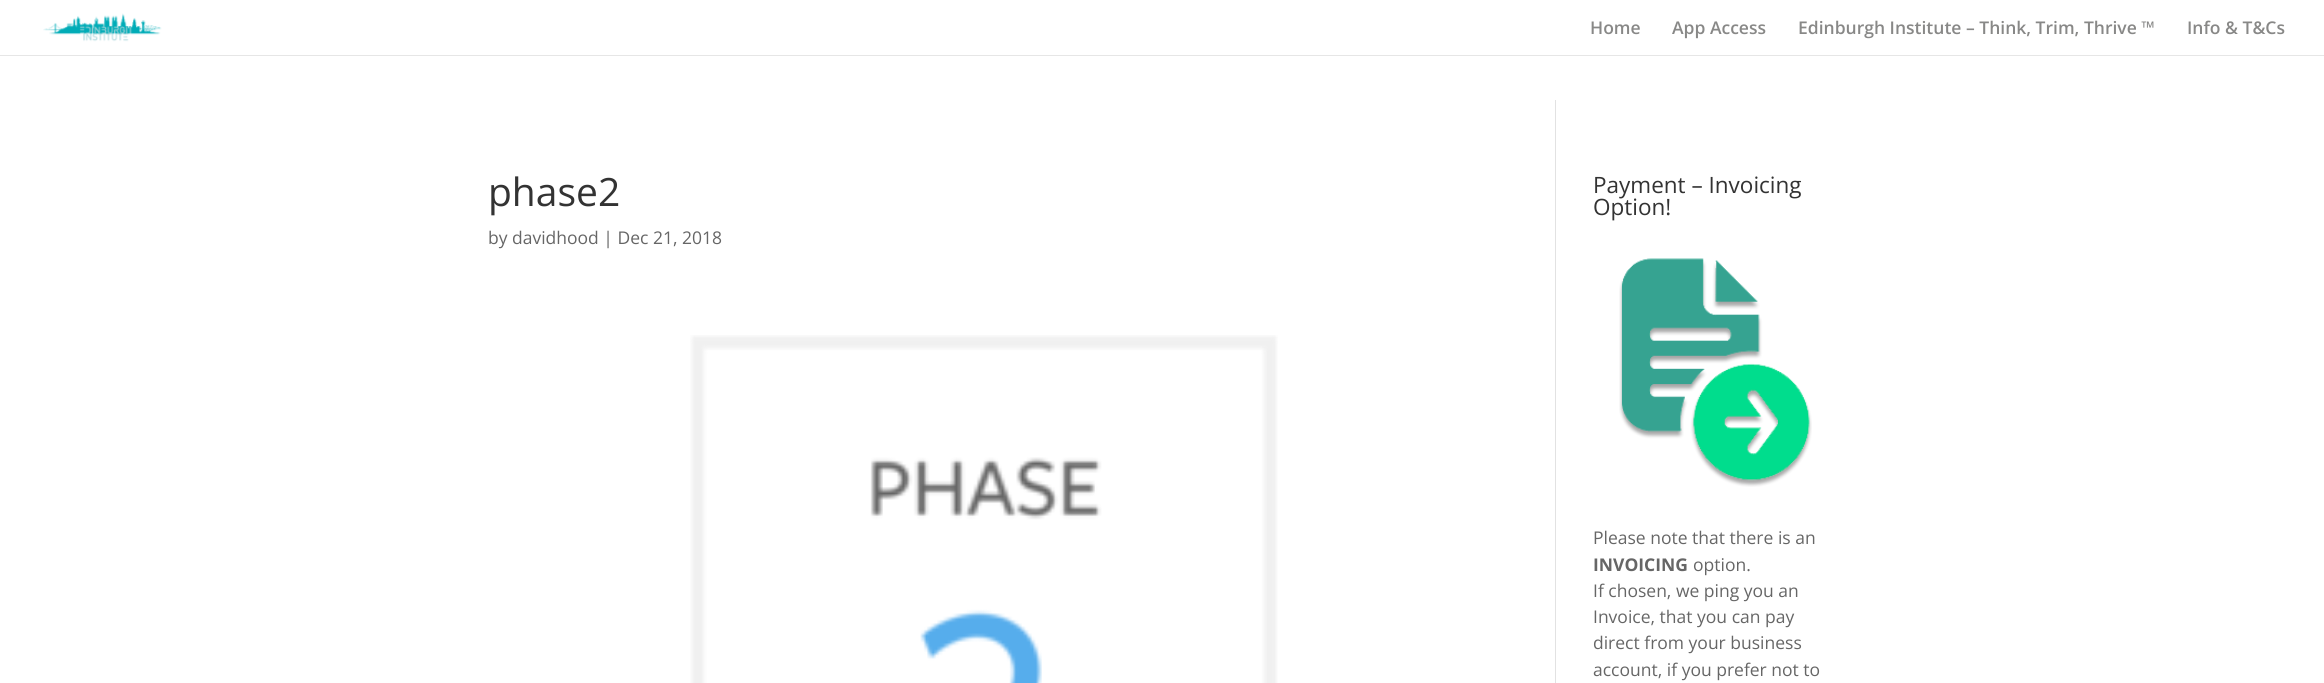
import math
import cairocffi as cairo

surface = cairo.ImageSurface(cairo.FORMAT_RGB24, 2324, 683)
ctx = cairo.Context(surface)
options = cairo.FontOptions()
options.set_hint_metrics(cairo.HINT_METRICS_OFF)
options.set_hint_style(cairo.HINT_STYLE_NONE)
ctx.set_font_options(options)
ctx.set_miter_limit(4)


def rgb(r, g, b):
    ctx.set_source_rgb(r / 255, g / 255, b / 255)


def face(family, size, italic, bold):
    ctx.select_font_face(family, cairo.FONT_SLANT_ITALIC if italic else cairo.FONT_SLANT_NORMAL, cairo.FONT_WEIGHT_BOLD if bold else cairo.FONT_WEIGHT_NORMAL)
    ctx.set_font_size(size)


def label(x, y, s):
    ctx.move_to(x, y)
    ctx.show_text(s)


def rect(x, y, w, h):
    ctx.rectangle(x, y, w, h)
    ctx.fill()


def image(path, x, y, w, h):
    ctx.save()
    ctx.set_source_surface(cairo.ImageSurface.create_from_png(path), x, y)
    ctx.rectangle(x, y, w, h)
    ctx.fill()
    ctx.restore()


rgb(255, 255, 255)
ctx.paint()
rgb(230, 230, 230)
rect(0, 55, 2324, 1)
image('image0.png', 43, 13, 119, 29)
face('Open Sans SemiBold', 17.5, 0, 0)
rgb(136, 136, 135)
label(1590, 34, 'Home')
label(1672, 34, 'App Access')
label(1798, 34, 'Edinburgh Institute – Think, Trim, Thrive ™')
label(2187, 34, 'Info & T&Cs')
rgb(226, 226, 226)
rect(1555, 100, 1, 583)
face('Open Sans', 39, 0, 0)
rgb(51, 51, 51)
label(488, 206, 'phase2')
face('Open Sans', 17.5, 0, 0)
rgb(102, 102, 102)
label(488, 244, 'by davidhood | Dec 21, 2018')
image('image1.png', 690, 335, 588, 348)
face('Open Sans', 22.5, 0, 0)
rgb(51, 51, 51)
label(1593, 193, 'Payment – Invoicing')
label(1593, 215, 'Option!')
image('image2.png', 1619, 258, 193, 229)
face('Open Sans', 17.5, 0, 0)
rgb(102, 102, 102)
label(1593, 544, 'Please note that there is an')
face('Open Sans', 17.5, 0, 1)
label(1593, 571, 'INVOICING')
face('Open Sans', 17.5, 0, 0)
label(1693, 571, 'option.')
label(1593, 597, 'If chosen, we ping you an')
label(1593, 623, 'Invoice, that you can pay')
label(1593, 649, 'direct from your business')
label(1593, 676, 'account, if you prefer not to')
surface.write_to_png('render.png')
